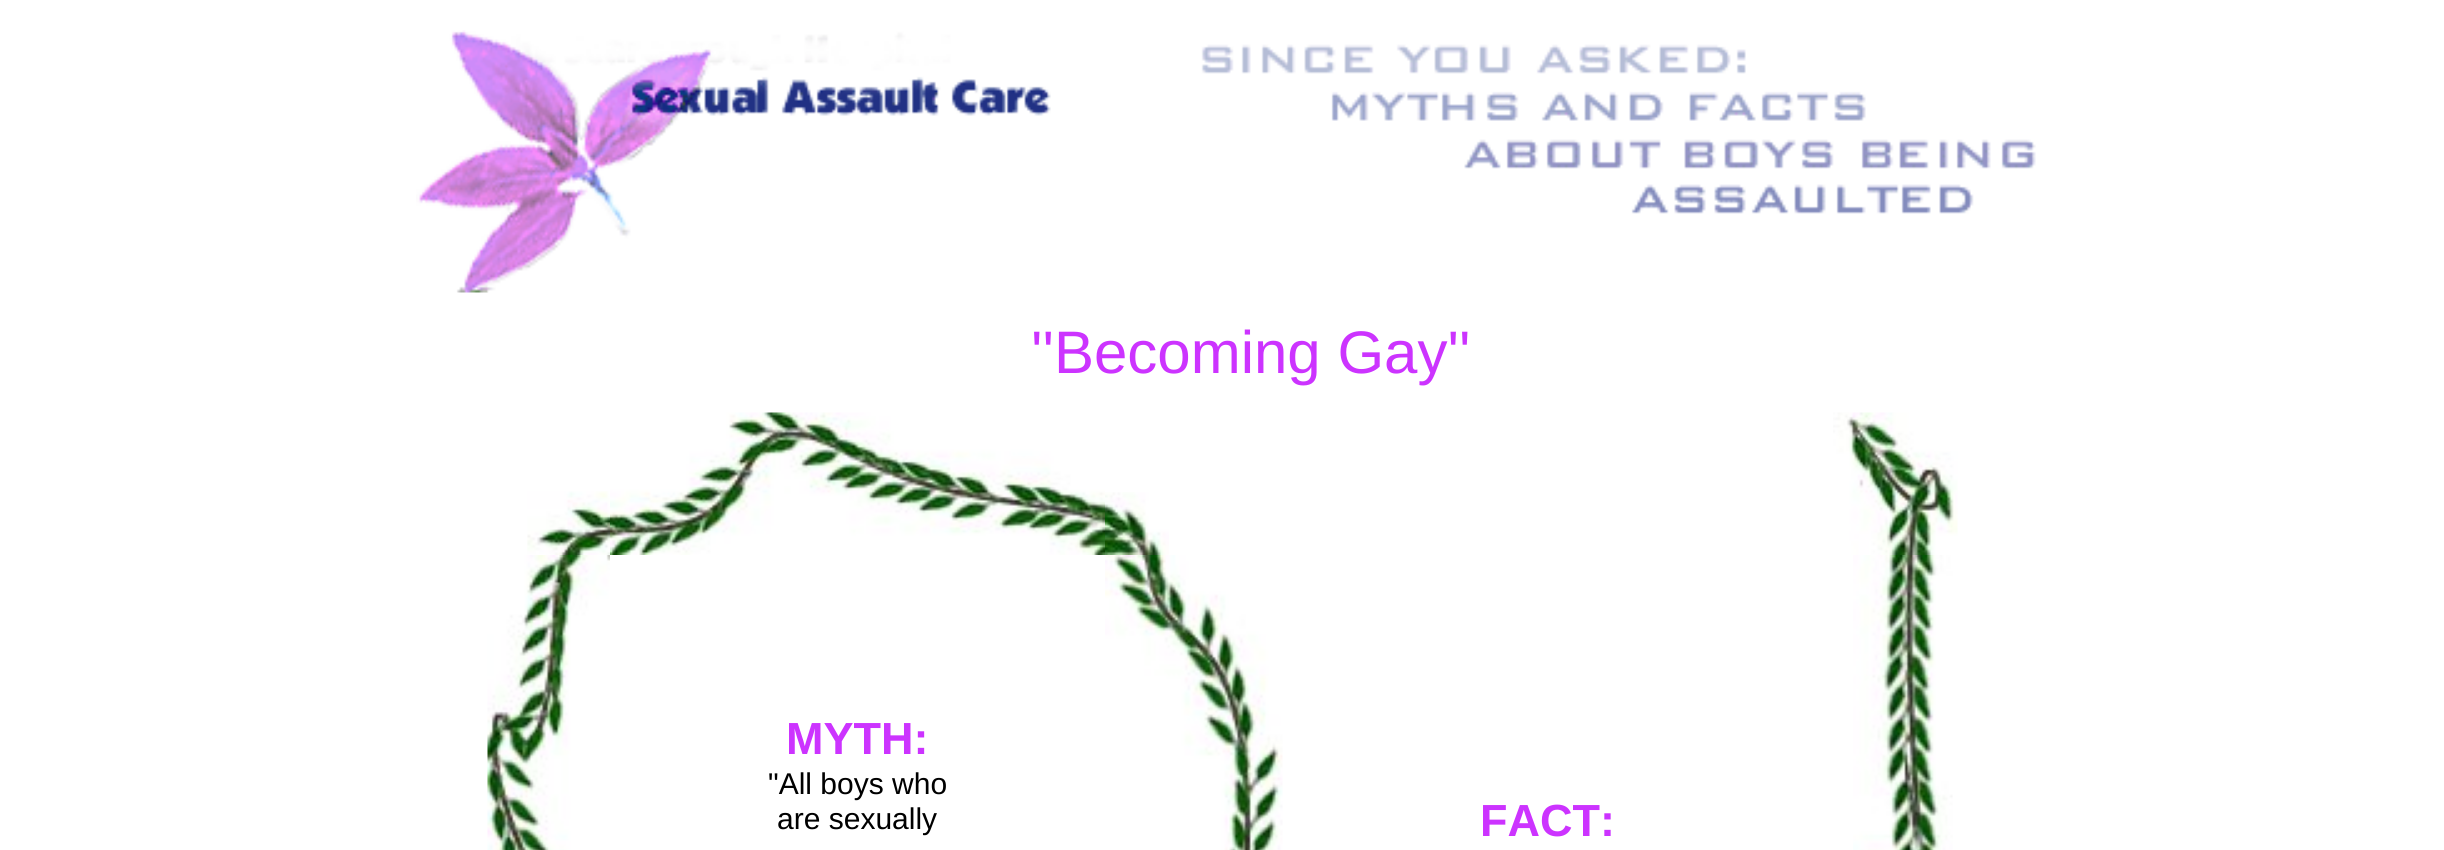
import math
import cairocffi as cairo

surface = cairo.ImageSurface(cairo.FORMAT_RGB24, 2444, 850)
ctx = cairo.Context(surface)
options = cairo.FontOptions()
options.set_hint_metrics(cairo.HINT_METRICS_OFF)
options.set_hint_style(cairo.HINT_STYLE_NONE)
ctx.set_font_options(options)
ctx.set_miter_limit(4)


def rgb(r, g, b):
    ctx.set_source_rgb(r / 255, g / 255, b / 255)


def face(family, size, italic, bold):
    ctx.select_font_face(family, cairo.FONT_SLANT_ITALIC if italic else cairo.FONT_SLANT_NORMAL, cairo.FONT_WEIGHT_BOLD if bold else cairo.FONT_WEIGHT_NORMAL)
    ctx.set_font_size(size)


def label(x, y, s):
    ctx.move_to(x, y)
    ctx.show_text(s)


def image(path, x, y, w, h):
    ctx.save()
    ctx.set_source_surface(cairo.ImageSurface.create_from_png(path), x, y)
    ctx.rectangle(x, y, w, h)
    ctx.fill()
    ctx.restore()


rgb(255, 255, 255)
ctx.paint()
image('image0.png', 416, 30, 1620, 263)
face('Liberation Sans', 60, 0, 0)
rgb(204, 51, 255)
label(1031, 373, '\'\'Becoming Gay\'\'')
image('image1.png', 527, 491, 83, 64)
image('image2.png', 610, 412, 495, 143)
image('image3.png', 1105, 492, 64, 63)
image('image4.png', 1833, 412, 125, 143)
image('image5.png', 487, 555, 123, 295)
face('Liberation Sans', 45, 0, 1)
label(786, 754, 'MYTH:')
face('Liberation Sans', 30, 0, 0)
rgb(0, 0, 0)
label(768, 794, '"All boys who')
label(777, 829, 'are sexually')
image('image6.png', 1105, 555, 178, 295)
face('Liberation Sans', 45, 0, 1)
rgb(204, 51, 255)
label(1480, 836, 'FACT:')
image('image7.png', 1853, 555, 100, 295)
surface.write_to_png('render.png')
